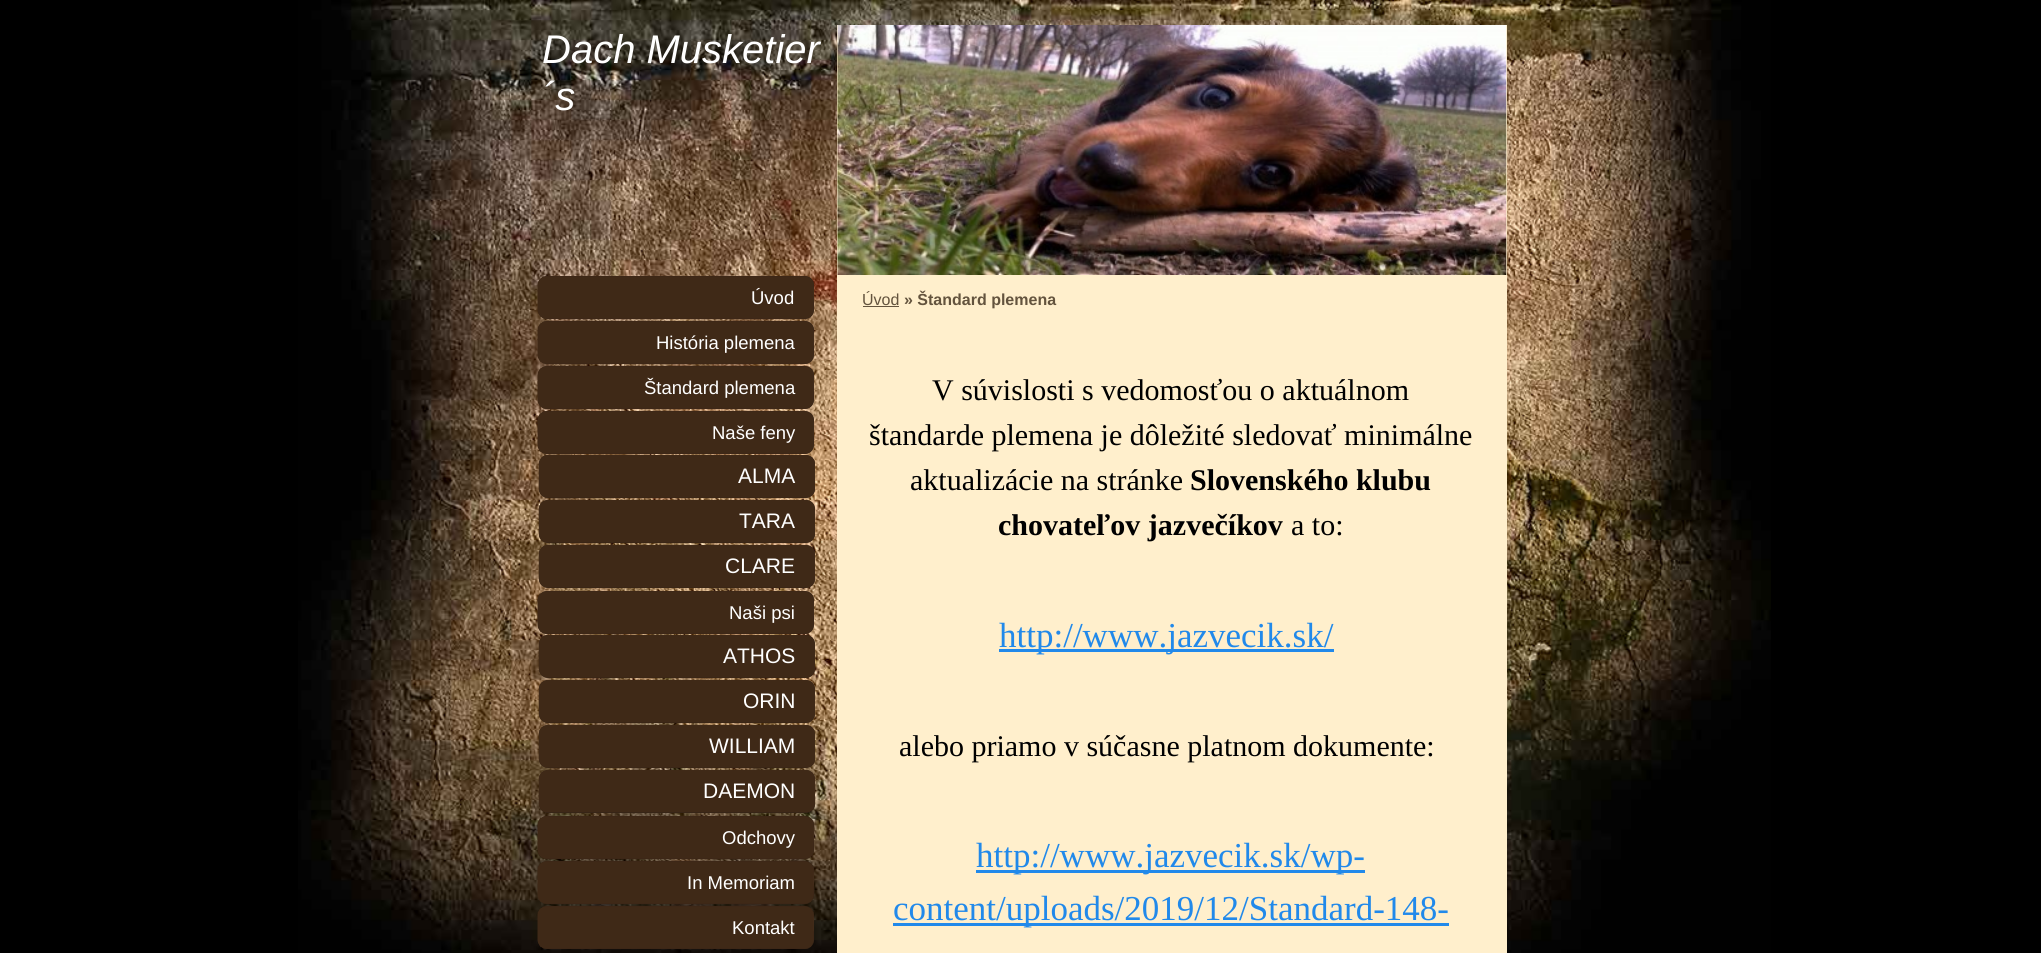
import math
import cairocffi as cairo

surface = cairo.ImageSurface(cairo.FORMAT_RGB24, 2041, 953)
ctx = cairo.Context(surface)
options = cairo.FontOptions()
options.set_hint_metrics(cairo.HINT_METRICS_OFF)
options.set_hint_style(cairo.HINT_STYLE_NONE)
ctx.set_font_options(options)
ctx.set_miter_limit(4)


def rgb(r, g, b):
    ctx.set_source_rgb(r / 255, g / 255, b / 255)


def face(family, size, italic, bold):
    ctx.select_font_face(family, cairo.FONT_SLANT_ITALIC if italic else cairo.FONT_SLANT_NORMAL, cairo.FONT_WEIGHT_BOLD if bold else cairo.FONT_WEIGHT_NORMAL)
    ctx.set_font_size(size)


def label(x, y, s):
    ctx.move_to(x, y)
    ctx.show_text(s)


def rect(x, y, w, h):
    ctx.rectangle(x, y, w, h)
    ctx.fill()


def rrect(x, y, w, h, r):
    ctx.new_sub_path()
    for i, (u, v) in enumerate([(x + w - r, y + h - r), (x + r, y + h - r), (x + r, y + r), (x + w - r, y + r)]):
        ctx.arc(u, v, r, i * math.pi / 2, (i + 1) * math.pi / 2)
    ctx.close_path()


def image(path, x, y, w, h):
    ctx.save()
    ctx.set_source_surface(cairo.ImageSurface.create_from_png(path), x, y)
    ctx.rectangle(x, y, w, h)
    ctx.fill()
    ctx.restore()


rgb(0, 0, 0)
ctx.paint()
image('image0.png', 298, 0, 1473, 953)
rgb(255, 239, 204)
rect(837, 25, 670, 928)
image('image1.png', 837, 25, 670, 250)
face('Liberation Sans', 40, 1, 0)
rgb(255, 255, 255)
label(542, 63, 'Dach Musketier')
label(542, 110, '´s')
rgb(55, 37, 23)
rrect(538, 276, 276, 43, 9)
ctx.fill()
image('image2.png', 537, 276, 277, 43)
face('Liberation Sans', 18.5, 0, 0)
rgb(255, 255, 255)
label(751, 304, 'Úvod')
rgb(55, 37, 23)
rrect(538, 321, 276, 43, 9)
ctx.fill()
image('image3.png', 537, 321, 277, 43)
rgb(255, 255, 255)
label(656, 349, 'História plemena')
rgb(55, 37, 23)
rrect(538, 366, 276, 43, 9)
ctx.fill()
image('image4.png', 537, 366, 277, 43)
rgb(255, 255, 255)
label(644, 394, 'Štandard plemena')
rgb(55, 37, 23)
rrect(538, 411, 276, 43, 9)
ctx.fill()
image('image5.png', 537, 411, 277, 43)
rgb(255, 255, 255)
label(712, 439, 'Naše feny')
rgb(55, 37, 23)
rrect(539, 455, 276, 43, 9)
ctx.fill()
image('image6.png', 538, 455, 277, 43)
face('Liberation Sans', 21, 0, 0)
rgb(255, 255, 255)
label(738, 483, 'ALMA')
rgb(55, 37, 23)
rrect(539, 500, 276, 43, 9)
ctx.fill()
image('image7.png', 538, 500, 277, 43)
rgb(255, 255, 255)
label(739, 528, 'TARA')
rgb(55, 37, 23)
rrect(539, 545, 276, 43, 9)
ctx.fill()
image('image8.png', 538, 545, 277, 43)
rgb(255, 255, 255)
label(725, 573, 'CLARE')
rgb(55, 37, 23)
rrect(538, 591, 276, 43, 9)
ctx.fill()
image('image9.png', 537, 591, 277, 43)
face('Liberation Sans', 18.5, 0, 0)
rgb(255, 255, 255)
label(729, 619, 'Naši psi')
rgb(55, 37, 23)
rrect(539, 635, 276, 43, 9)
ctx.fill()
image('image10.png', 538, 635, 277, 43)
face('Liberation Sans', 21, 0, 0)
rgb(255, 255, 255)
label(723, 663, 'ATHOS')
rgb(55, 37, 23)
rrect(539, 680, 276, 43, 9)
ctx.fill()
image('image11.png', 538, 680, 277, 43)
rgb(255, 255, 255)
label(743, 708, 'ORIN')
rgb(55, 37, 23)
rrect(539, 725, 276, 43, 9)
ctx.fill()
image('image12.png', 538, 725, 277, 43)
rgb(255, 255, 255)
label(709, 753, 'WILLIAM')
rgb(55, 37, 23)
rrect(539, 770, 276, 43, 9)
ctx.fill()
image('image13.png', 538, 770, 277, 42)
rgb(255, 255, 255)
label(703, 798, 'DAEMON')
rgb(55, 37, 23)
rrect(538, 816, 276, 43, 9)
ctx.fill()
image('image14.png', 537, 816, 277, 43)
face('Liberation Sans', 18.5, 0, 0)
rgb(255, 255, 255)
label(722, 844, 'Odchovy')
rgb(55, 37, 23)
rrect(538, 861, 276, 43, 9)
ctx.fill()
image('image15.png', 537, 861, 277, 43)
rgb(255, 255, 255)
label(687, 889, 'In Memoriam')
rgb(55, 37, 23)
rrect(538, 906, 276, 43, 9)
ctx.fill()
image('image16.png', 537, 906, 277, 43)
rgb(255, 255, 255)
label(732, 934, 'Kontakt')
face('Liberation Sans', 16, 0, 0)
rgb(99, 83, 61)
label(862, 305, 'Úvod')
rect(863, 306, 36, 1)
face('Liberation Sans', 16, 0, 1)
label(904, 305, '» Štandard plemena')
face('Liberation Serif', 30, 0, 0)
rgb(0, 0, 0)
label(932, 400, 'V súvislosti s vedomosťou o aktuálnom')
label(869, 445, 'štandarde plemena je dôležité sledovať minimálne')
label(910, 490, 'aktualizácie na stránke')
face('Liberation Serif', 30, 0, 1)
label(1190, 490, 'Slovenského klubu')
label(998, 535, 'chovateľov jazvečíkov')
face('Liberation Serif', 30, 0, 0)
label(1291, 535, 'a to:')
rgb(33, 137, 234)
rect(999, 649, 335, 3)
face('Liberation Serif', 35, 0, 0)
label(999, 647, 'http://www.jazvecik.sk/')
face('Liberation Serif', 30, 0, 0)
rgb(0, 0, 0)
label(899, 756, 'alebo priamo v súčasne platnom dokumente:')
rgb(33, 137, 234)
rect(976, 870, 389, 3)
face('Liberation Serif', 35, 0, 0)
label(976, 867, 'http://www.jazvecik.sk/wp-')
rect(893, 923, 556, 3)
label(893, 920, 'content/uploads/2019/12/Standard-148-')
surface.write_to_png('render.png')
